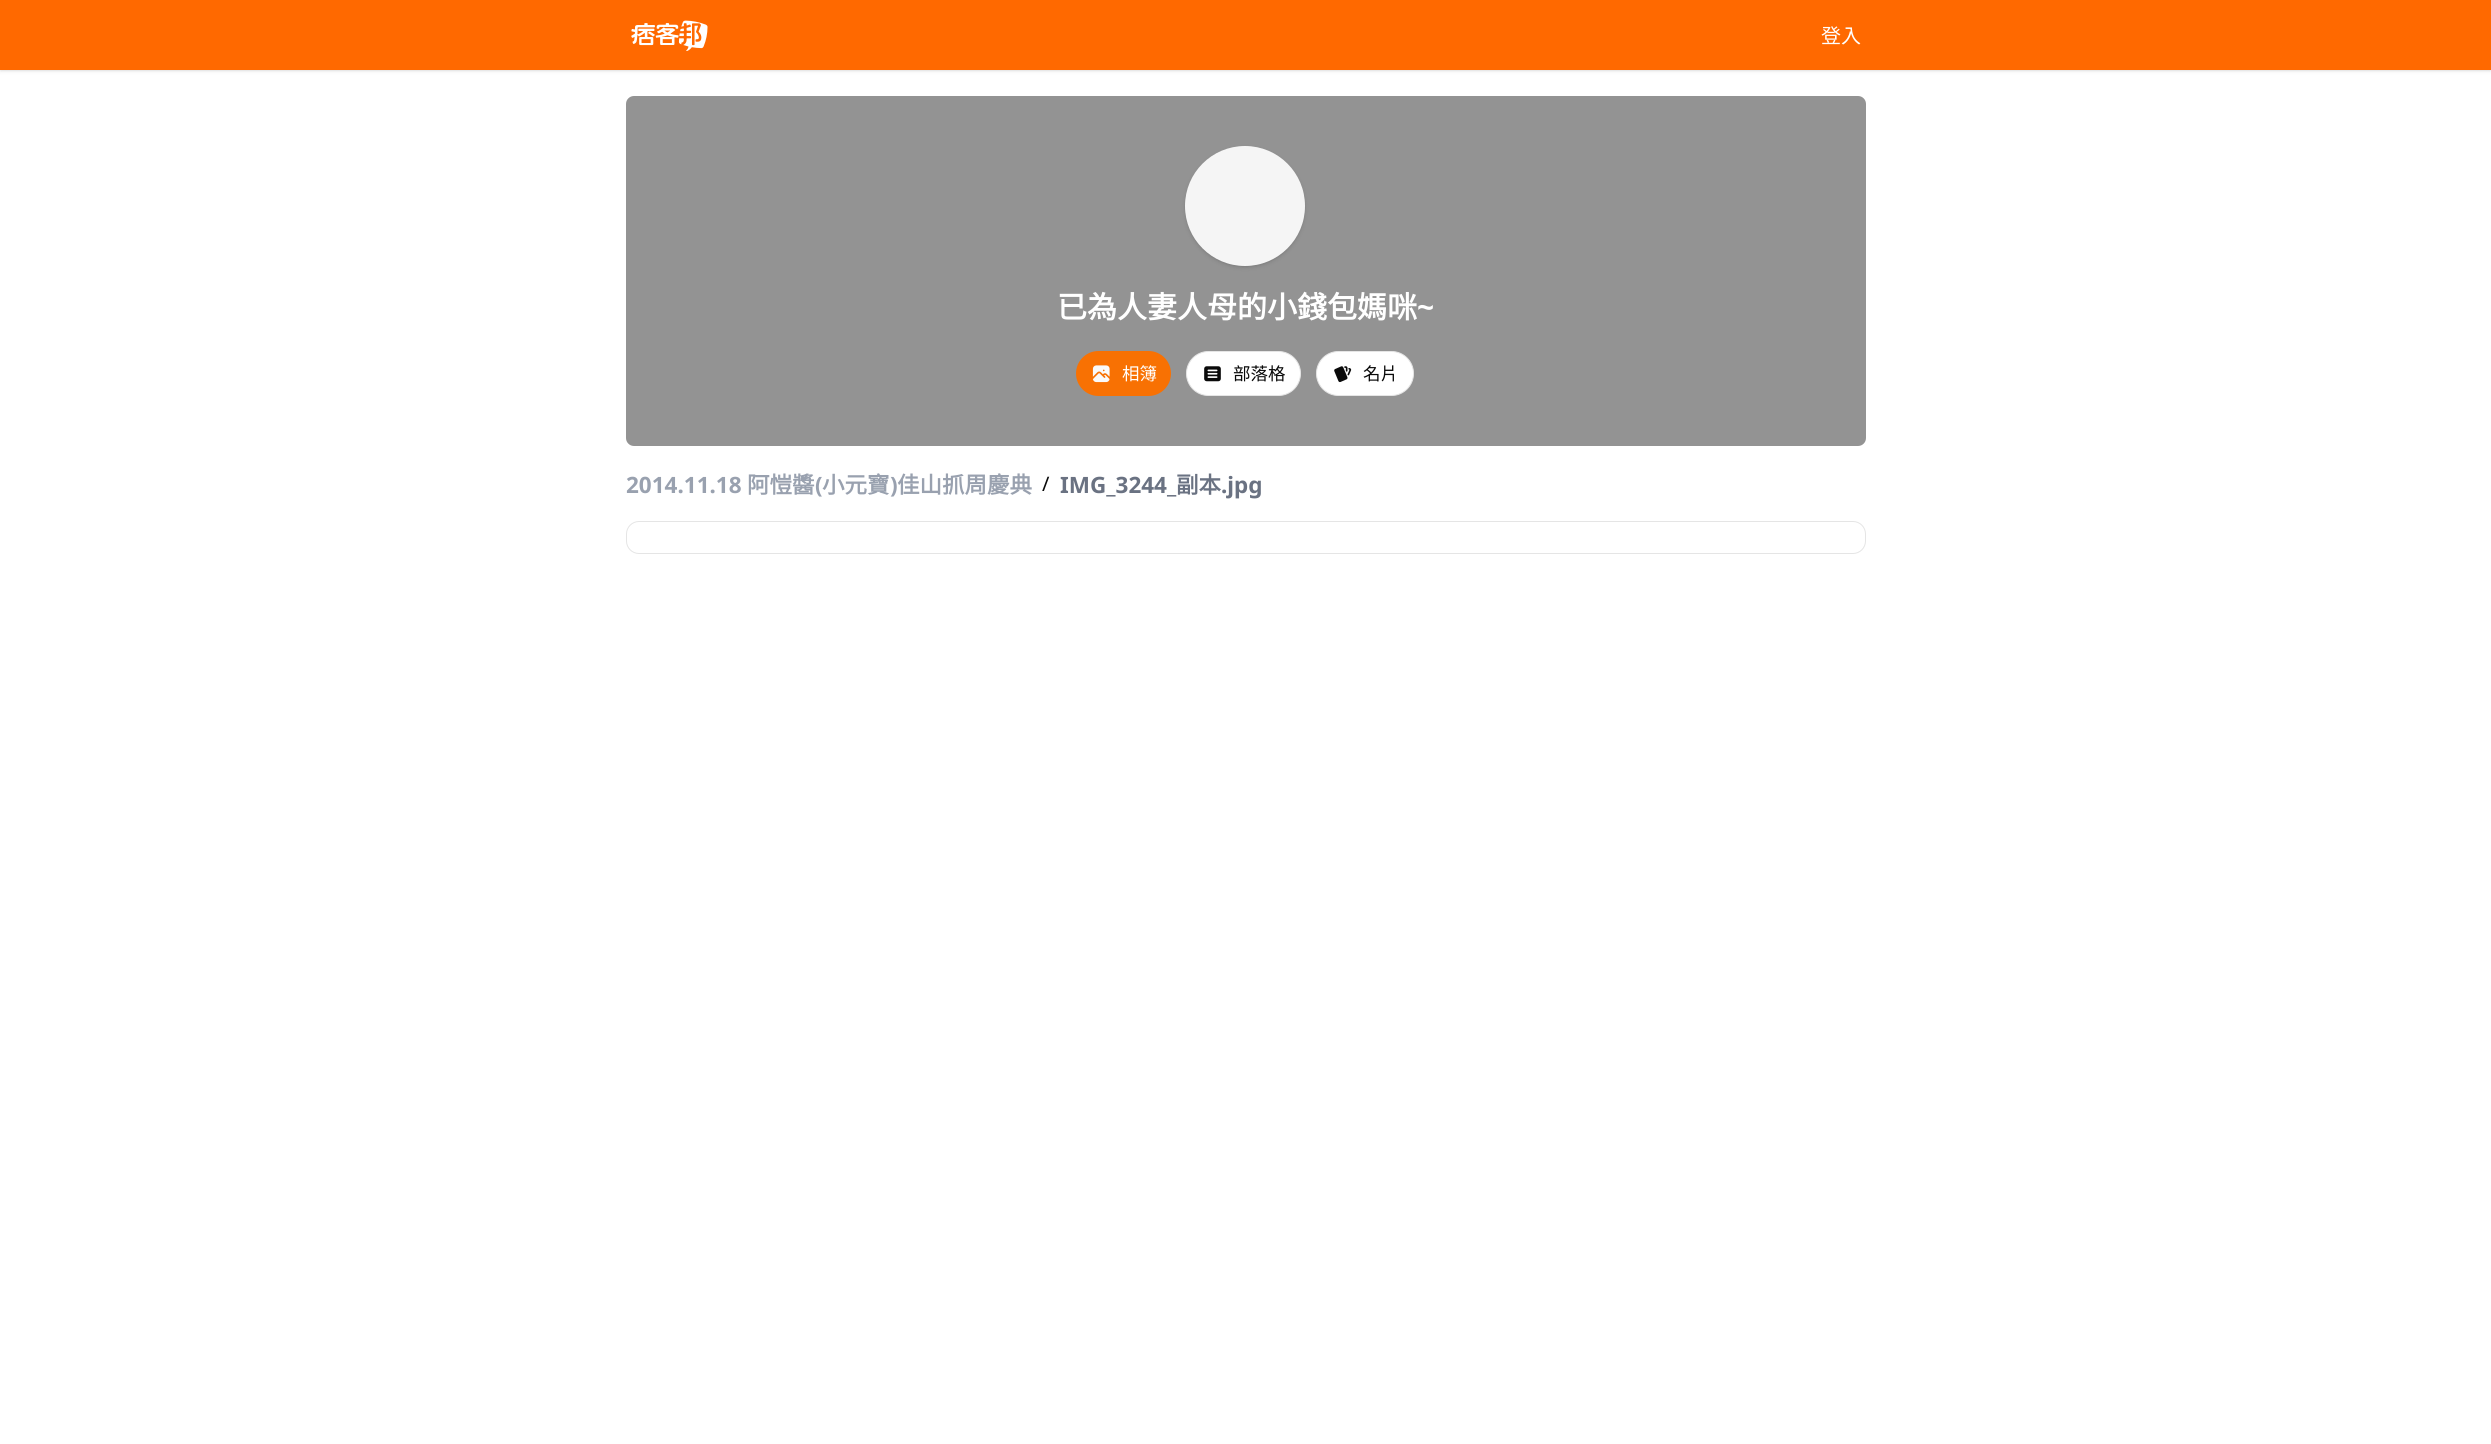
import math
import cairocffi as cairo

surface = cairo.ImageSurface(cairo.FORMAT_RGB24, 2491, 1444)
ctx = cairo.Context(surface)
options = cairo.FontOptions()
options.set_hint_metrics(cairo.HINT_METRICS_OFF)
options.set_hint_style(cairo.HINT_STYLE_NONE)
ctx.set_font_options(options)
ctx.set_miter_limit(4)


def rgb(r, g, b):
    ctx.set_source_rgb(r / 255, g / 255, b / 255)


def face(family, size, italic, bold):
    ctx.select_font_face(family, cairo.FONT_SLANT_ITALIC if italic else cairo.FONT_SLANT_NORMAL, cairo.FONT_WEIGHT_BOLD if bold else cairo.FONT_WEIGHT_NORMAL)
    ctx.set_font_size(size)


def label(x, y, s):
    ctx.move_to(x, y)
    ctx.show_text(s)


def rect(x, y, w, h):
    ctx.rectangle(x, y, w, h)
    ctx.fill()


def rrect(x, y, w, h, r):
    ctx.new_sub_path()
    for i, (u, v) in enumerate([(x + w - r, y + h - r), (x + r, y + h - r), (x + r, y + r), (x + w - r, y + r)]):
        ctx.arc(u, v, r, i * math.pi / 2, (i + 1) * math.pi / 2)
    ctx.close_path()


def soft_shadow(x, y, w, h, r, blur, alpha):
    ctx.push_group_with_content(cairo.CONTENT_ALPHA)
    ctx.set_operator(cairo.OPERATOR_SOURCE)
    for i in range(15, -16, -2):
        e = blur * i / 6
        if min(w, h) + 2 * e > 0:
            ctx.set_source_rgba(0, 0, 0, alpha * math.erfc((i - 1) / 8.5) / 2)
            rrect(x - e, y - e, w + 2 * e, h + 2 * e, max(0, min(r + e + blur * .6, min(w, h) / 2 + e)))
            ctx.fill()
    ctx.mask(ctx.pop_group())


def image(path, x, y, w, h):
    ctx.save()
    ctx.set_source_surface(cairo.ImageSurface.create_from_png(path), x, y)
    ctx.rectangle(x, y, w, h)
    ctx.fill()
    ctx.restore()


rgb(255, 255, 255)
ctx.paint()
rgb(0, 0, 0)
soft_shadow(1, 3, 2489, 67, 0, 1, 0.1)
soft_shadow(0, 1, 2491, 70, 0, 2, 0.1)
rgb(255, 105, 0)
rect(0, 0, 2491, 70)
image('image0.png', 631, 20, 77, 31)
face('Noto Sans CJK TC', 20, 0, 0)
rgb(255, 255, 255)
label(1821, 43, '登入')
rgb(245, 245, 245)
rrect(626, 96, 1240, 350, 8)
ctx.fill()
ctx.set_source_rgba(0, 0, 0, 0.4)
rrect(626, 96, 1240, 350, 8)
ctx.fill()
rgb(0, 0, 0)
soft_shadow(1186, 149, 118, 117, 58.5, 1, 0.1)
soft_shadow(1185, 148, 120, 120, 60, 2, 0.1)
rgb(245, 245, 245)
ctx.arc(1245, 206, 60, 0, 2 * math.pi)
ctx.fill()
face('Noto Sans CJK TC', 30, 0, 1)
rgb(255, 255, 255)
label(1057, 318, '已為人妻人母的小錢包媽咪')
face('Noto Sans', 30, 0, 1)
label(1417, 318, '~')
rgb(248, 113, 3)
rrect(1076, 351, 95, 45, 22.5)
ctx.fill()
image('image1.png', 1092, 365, 18, 18)
face('Noto Sans CJK TC', 17.5, 0, 0)
rgb(255, 255, 255)
label(1122, 380, '相簿')
rrect(1186.5, 351.5, 114, 44, 22)
ctx.fill_preserve()
rgb(229, 229, 229)
ctx.set_line_width(1)
ctx.stroke()
image('image2.png', 1204, 366, 17, 16)
rgb(10, 10, 10)
label(1233, 380, '部落格')
rgb(255, 255, 255)
rrect(1316.5, 351.5, 97, 44, 22)
ctx.fill_preserve()
rgb(229, 229, 229)
ctx.stroke()
image('image3.png', 1334, 366, 18, 17)
rgb(10, 10, 10)
label(1363, 380, '名片')
face('Noto Sans', 22.5, 0, 1)
rgb(153, 161, 175)
label(626, 493, '2014.11.18')
face('Noto Sans CJK TC', 22.5, 0, 1)
label(747, 493, '阿愷醬')
face('Noto Sans', 22.5, 0, 1)
label(815, 493, '(')
face('Noto Sans CJK TC', 22.5, 0, 1)
label(822, 493, '小元寶')
face('Noto Sans', 22.5, 0, 1)
label(890, 493, ')')
face('Noto Sans CJK TC', 22.5, 0, 1)
label(897, 493, '佳山抓周慶典')
face('Noto Sans', 20, 0, 0)
rgb(10, 10, 10)
label(1042, 491, '/')
face('Noto Sans', 22.5, 0, 1)
rgb(106, 114, 130)
label(1060, 493, 'IMG_3244_')
face('Noto Sans CJK TC', 22.5, 0, 1)
label(1176, 493, '副本')
face('Noto Sans', 22.5, 0, 1)
label(1221, 493, '.jpg')
rrect(626.5, 521.5, 1239, 32, 12.5)
rgb(229, 229, 229)
ctx.stroke()
surface.write_to_png('render.png')
